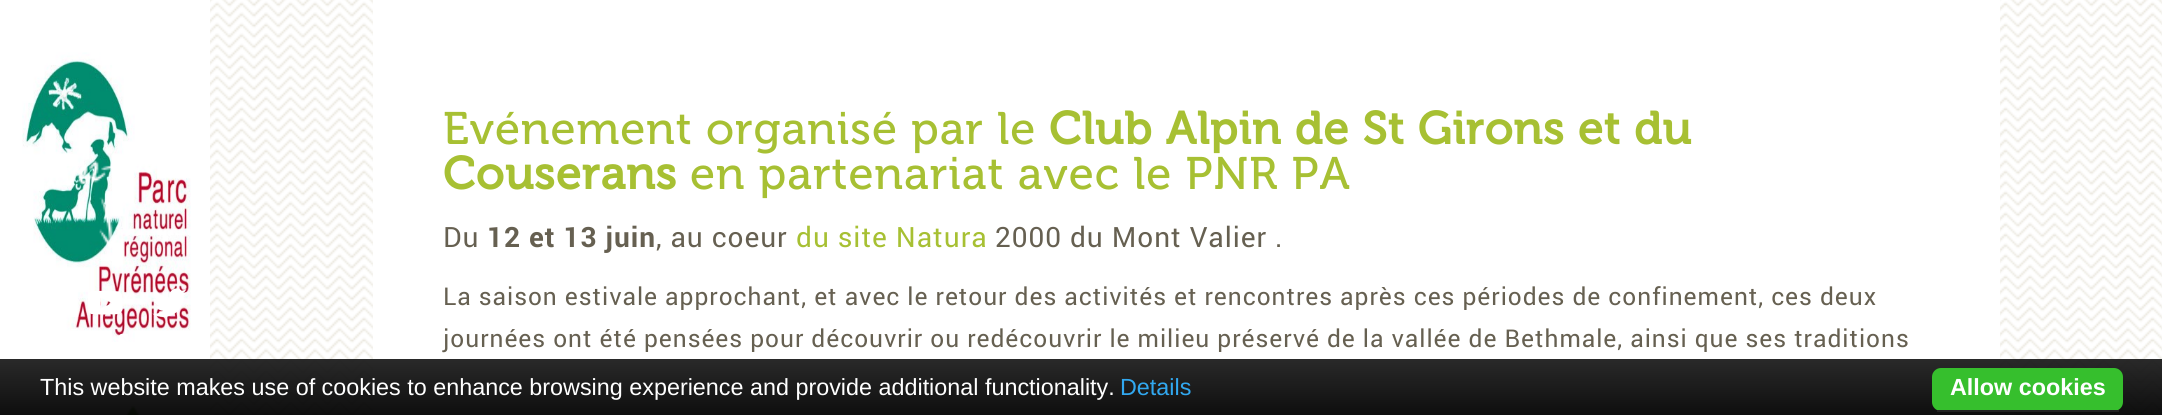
import math
import cairocffi as cairo

surface = cairo.ImageSurface(cairo.FORMAT_RGB24, 2162, 415)
ctx = cairo.Context(surface)
options = cairo.FontOptions()
options.set_hint_metrics(cairo.HINT_METRICS_OFF)
options.set_hint_style(cairo.HINT_STYLE_NONE)
ctx.set_font_options(options)
ctx.set_miter_limit(4)


def rgb(r, g, b):
    ctx.set_source_rgb(r / 255, g / 255, b / 255)


def face(family, size, italic, bold):
    ctx.select_font_face(family, cairo.FONT_SLANT_ITALIC if italic else cairo.FONT_SLANT_NORMAL, cairo.FONT_WEIGHT_BOLD if bold else cairo.FONT_WEIGHT_NORMAL)
    ctx.set_font_size(size)


def label(x, y, s):
    ctx.move_to(x, y)
    ctx.show_text(s)


def tracked(x, y, s, letter, word):
    ctx.move_to(x, y)
    for ch in s:
        ctx.show_text(ch)
        ctx.rel_move_to(letter + word * (ch == ' '), 0)


def rect(x, y, w, h):
    ctx.rectangle(x, y, w, h)
    ctx.fill()


def rrect(x, y, w, h, r):
    ctx.new_sub_path()
    for i, (u, v) in enumerate([(x + w - r, y + h - r), (x + r, y + h - r), (x + r, y + r), (x + w - r, y + r)]):
        ctx.arc(u, v, r, i * math.pi / 2, (i + 1) * math.pi / 2)
    ctx.close_path()


def image(path, x, y, w, h):
    ctx.save()
    ctx.set_source_surface(cairo.ImageSurface.create_from_png(path), x, y)
    ctx.rectangle(x, y, w, h)
    ctx.fill()
    ctx.restore()


rgb(255, 255, 255)
ctx.paint()
image('image0.png', 210, 0, 1952, 415)
image('image1.png', 125, 405, 16, 10)
image('image2.png', 22, 52, 169, 290)
image('image3.png', 45, 160, 111, 88)
image('image4.png', 88, 290, 35, 25)
image('image5.png', 152, 288, 35, 29)
image('image6.png', 71, 329, 7, 1)
image('image7.png', 119, 333, 9, 9)
rgb(255, 255, 255)
rect(373, 0, 1627, 415)
face('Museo', 45.5, 0, 0)
rgb(167, 192, 51)
tracked(443, 144, 'Evénement organisé par le', 0.98, 0)
face('Museo', 45.5, 0, 1)
tracked(1049, 144, 'Club Alpin de St Girons et du', 0.98, 0)
tracked(443, 189, 'Couserans', 0.98, 0)
face('Museo', 45.5, 0, 0)
tracked(690, 189, 'en partenariat avec le PNR PA', 0.98, 0)
face('roboto', 28, 0, 0)
rgb(102, 96, 81)
tracked(443, 247, 'Du', 0.98, 0)
face('roboto', 28, 0, 1)
tracked(487, 247, '12 et 13 juin', 0.98, 0)
face('roboto', 28, 0, 0)
tracked(656, 247, ', au coeur', 0.98, 0)
rgb(167, 192, 51)
tracked(796, 247, 'du site Natura', 0.98, 0)
rgb(102, 96, 81)
tracked(995, 247, '2000 du Mont Valier .', 0.98, 0)
face('roboto', 24.5, 0, 0)
tracked(443, 305, 'La saison estivale approchant, et avec le retour des activités et rencontres après ces périodes de confinement, ces deux', 0.98, 0)
tracked(443, 347, 'journées ont été pensées pour découvrir ou redécouvrir le milieu préservé de la vallée de Bethmale, ainsi que ses traditions', 0.98, 0)
gradient = cairo.LinearGradient(1082, 359, 1082, 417)
gradient.add_color_stop_rgba(0, 0.118, 0.118, 0.118, 0.95)
gradient.add_color_stop_rgba(1, 0, 0, 0, 0.95)
ctx.set_source(gradient)
rect(0, 359, 2162, 56)
face('Liberation Sans', 23.35, 0, 0)
rgb(255, 255, 255)
label(40, 395, 'This website makes use of cookies to enhance browsing experience and provide additional functionality.')
rgb(49, 168, 240)
label(1120, 395, 'Details')
rgb(54, 191, 45)
rrect(1932, 368, 191, 43, 9)
ctx.fill()
rgb(34, 34, 34)
rect(1937, 410, 182, 2)
face('Liberation Sans', 23.35, 0, 1)
rgb(255, 255, 255)
label(1950, 395, 'Allow cookies')
surface.write_to_png('render.png')
